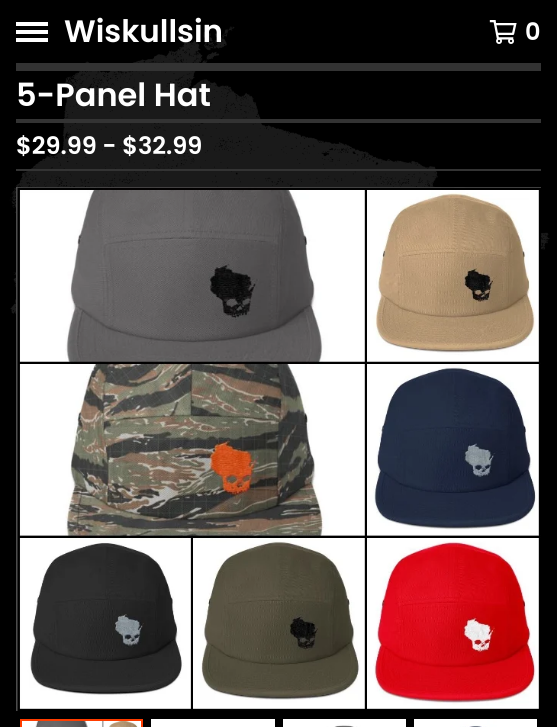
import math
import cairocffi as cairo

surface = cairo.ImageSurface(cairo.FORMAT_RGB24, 557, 727)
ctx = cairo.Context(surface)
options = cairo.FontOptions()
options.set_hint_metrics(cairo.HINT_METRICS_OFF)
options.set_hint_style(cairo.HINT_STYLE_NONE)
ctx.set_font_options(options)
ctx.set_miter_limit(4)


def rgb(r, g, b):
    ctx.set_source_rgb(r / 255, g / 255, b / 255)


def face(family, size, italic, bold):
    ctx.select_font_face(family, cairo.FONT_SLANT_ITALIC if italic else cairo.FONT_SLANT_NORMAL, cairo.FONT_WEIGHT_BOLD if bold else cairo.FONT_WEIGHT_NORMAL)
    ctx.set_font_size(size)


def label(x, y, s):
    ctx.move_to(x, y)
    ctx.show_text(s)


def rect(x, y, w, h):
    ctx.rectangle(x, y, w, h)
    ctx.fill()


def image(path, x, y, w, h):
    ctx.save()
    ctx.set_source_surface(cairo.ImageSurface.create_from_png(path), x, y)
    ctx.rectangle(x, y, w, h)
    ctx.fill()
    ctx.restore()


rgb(0, 0, 0)
ctx.paint()
image('image0.png', 9, 26, 541, 288)
rgb(51, 51, 51)
rect(16, 63, 525, 8)
rgb(255, 255, 255)
rect(16, 30, 32, 4)
rect(16, 22, 32, 4)
rect(16, 38, 32, 4)
face('Poppins SemiBold', 31, 0, 0)
label(64, 42, 'Wiskullsin')
image('image1.png', 489, 20, 28, 24)
face('Poppins SemiBold', 24, 0, 0)
label(525, 40, '0')
rgb(51, 51, 51)
rect(16, 119, 525, 4)
face('Poppins SemiBold', 32, 0, 0)
rgb(255, 255, 255)
label(16, 106, '5-Panel Hat')
rgb(51, 51, 51)
rect(16, 169, 525, 2)
face('Poppins SemiBold', 24, 0, 0)
rgb(255, 255, 255)
label(16, 154, '$29.99 - $32.99')
image('image2.png', 16, 187, 525, 524)
image('image3.png', 22, 721, 119, 6)
ctx.rectangle(21, 720, 121, 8)
rgb(255, 61, 0)
ctx.stroke()
rgb(255, 255, 255)
rect(151, 719, 124, 8)
image('image4.png', 283, 719, 123, 8)
image('image5.png', 414, 719, 123, 8)
surface.write_to_png('render.png')
